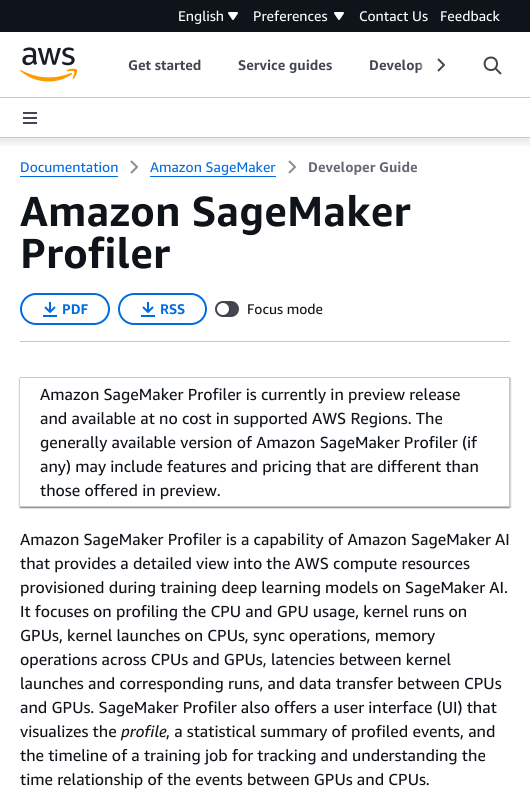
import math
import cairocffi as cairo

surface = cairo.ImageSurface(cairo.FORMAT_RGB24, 530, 800)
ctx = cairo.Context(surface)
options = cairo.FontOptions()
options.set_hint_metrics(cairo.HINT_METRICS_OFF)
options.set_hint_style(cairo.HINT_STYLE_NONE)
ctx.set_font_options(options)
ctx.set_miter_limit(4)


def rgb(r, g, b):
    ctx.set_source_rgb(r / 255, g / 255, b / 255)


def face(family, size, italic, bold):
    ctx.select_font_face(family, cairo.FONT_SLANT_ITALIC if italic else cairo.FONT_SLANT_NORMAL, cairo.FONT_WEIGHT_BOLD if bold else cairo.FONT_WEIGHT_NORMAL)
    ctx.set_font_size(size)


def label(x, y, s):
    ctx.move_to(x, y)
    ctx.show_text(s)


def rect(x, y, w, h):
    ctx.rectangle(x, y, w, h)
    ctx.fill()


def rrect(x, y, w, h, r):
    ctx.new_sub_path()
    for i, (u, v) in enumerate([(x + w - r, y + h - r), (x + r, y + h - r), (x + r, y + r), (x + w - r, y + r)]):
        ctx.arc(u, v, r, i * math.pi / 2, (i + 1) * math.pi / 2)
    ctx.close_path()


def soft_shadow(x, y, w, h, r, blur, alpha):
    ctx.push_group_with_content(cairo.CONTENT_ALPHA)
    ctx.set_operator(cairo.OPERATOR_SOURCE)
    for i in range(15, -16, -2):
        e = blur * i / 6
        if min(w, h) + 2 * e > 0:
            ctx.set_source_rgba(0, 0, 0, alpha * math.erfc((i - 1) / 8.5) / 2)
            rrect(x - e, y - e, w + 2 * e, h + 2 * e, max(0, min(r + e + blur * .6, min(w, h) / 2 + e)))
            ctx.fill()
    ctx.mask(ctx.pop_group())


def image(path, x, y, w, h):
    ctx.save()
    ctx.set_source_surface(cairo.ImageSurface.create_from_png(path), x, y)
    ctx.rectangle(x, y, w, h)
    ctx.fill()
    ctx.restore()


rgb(255, 255, 255)
ctx.paint()
ctx.save()
ctx.rectangle(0, 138, 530, 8)
ctx.clip()
rgb(0, 7, 22)
soft_shadow(-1, 101, 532, 42, 0, 4, 0.1)
ctx.restore()
rgb(255, 255, 255)
rect(2, 96, 526, 1)
rgb(198, 198, 205)
rect(0, 97, 530, 1)
rgb(15, 20, 26)
rect(0, 0, 530, 32)
face('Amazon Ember', 14, 0, 0)
rgb(255, 255, 255)
label(178, 21, 'English')
image('image0.png', 228, 12, 10, 8)
label(253, 21, 'Preferences')
image('image0.png', 334, 12, 10, 8)
label(359, 21, 'Contact Us')
label(440, 21, 'Feedback')
image('image1.png', 20, 47, 58, 35)
face('Amazon Ember', 14, 0, 1)
rgb(66, 70, 80)
label(128, 70, 'Get started')
label(238, 70, 'Service guides')
label(369, 70, 'Develop')
rgb(255, 255, 255)
rect(423, 65, 1, 3)
ctx.save()
ctx.set_fill_rule(cairo.FILL_RULE_EVEN_ODD)
ctx.new_path()
ctx.move_to(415, 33)
ctx.line_to(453, 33)
ctx.line_to(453, 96)
ctx.line_to(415, 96)
ctx.close_path()
ctx.move_to(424, 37)
ctx.line_to(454, 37)
ctx.line_to(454, 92)
ctx.line_to(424, 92)
ctx.close_path()
ctx.clip()
rgb(255, 255, 255)
soft_shadow(422, 40, 24, 49, 0, 2, 1)
ctx.restore()
ctx.new_path()
ctx.move_to(438, 59)
ctx.line_to(444, 65)
ctx.line_to(438, 71)
rgb(66, 70, 80)
ctx.set_line_join(cairo.LINE_JOIN_ROUND)
ctx.stroke()
ctx.new_path()
ctx.move_to(496, 69)
ctx.line_to(501, 74)
ctx.move_to(491, 70)
ctx.curve_to(499, 70, 499, 57.5, 491, 57.5)
ctx.curve_to(482.5, 57.5, 482.5, 70, 491, 70)
ctx.close_path()
ctx.stroke()
rgb(198, 198, 205)
rect(0, 137, 530, 1)
ctx.new_path()
ctx.move_to(37, 113)
ctx.line_to(23, 113)
ctx.move_to(37, 118)
ctx.line_to(23, 118)
ctx.move_to(37, 123)
ctx.line_to(23, 123)
rgb(66, 70, 80)
ctx.stroke()
face('Amazon Ember', 14, 0, 0)
rgb(0, 108, 224)
label(20, 172, 'Documentation')
rect(20, 176, 98, 1)
ctx.new_path()
ctx.move_to(131, 161)
ctx.line_to(137, 167)
ctx.line_to(131, 173)
rgb(140, 140, 148)
ctx.stroke()
rgb(0, 108, 224)
label(150, 172, 'Amazon SageMaker')
rect(150, 176, 126, 1)
ctx.new_path()
ctx.move_to(289, 161)
ctx.line_to(295, 167)
ctx.line_to(289, 173)
rgb(140, 140, 148)
ctx.stroke()
face('Amazon Ember', 14, 0, 1)
rgb(101, 104, 113)
label(308, 172, 'Developer Guide')
rgb(198, 198, 205)
rect(20, 341, 490, 1)
face('Amazon Ember', 42, 0, 1)
rgb(15, 20, 26)
label(20, 226, 'Amazon SageMaker')
label(20, 268, 'Profiler')
rrect(21, 294, 88, 30, 15)
rgb(0, 108, 224)
ctx.set_line_join(cairo.LINE_JOIN_MITER)
ctx.stroke()
ctx.new_path()
ctx.move_to(43, 316)
ctx.line_to(57, 316)
ctx.move_to(55, 307)
ctx.line_to(50, 312)
ctx.line_to(45, 307)
ctx.move_to(50, 311)
ctx.line_to(50, 302)
ctx.set_line_join(cairo.LINE_JOIN_ROUND)
ctx.stroke()
face('Amazon Ember', 14, 0, 1)
label(62, 314, 'PDF')
rrect(119, 294, 87, 30, 15)
ctx.set_line_join(cairo.LINE_JOIN_MITER)
ctx.stroke()
ctx.new_path()
ctx.move_to(141, 316)
ctx.line_to(155, 316)
ctx.move_to(153, 307)
ctx.line_to(148, 312)
ctx.line_to(143, 307)
ctx.move_to(148, 311)
ctx.line_to(148, 302)
ctx.set_line_join(cairo.LINE_JOIN_ROUND)
ctx.stroke()
label(160, 314, 'RSS')
rgb(66, 70, 80)
rrect(215, 301, 24, 16, 8)
ctx.fill()
rgb(50, 53, 60)
ctx.new_path()
ctx.move_to(219.5, 313.5)
ctx.curve_to(224.5, 320.5, 234.5, 310.5, 227.5, 305.5)
ctx.curve_to(232, 311, 225, 318, 219.5, 313.5)
ctx.close_path()
ctx.fill()
rgb(255, 255, 255)
ctx.arc(223, 309, 6, 0, 2 * math.pi)
ctx.fill()
face('Amazon Ember', 14, 0, 0)
rgb(15, 20, 26)
label(247, 314, 'Focus mode')
ctx.save()
ctx.set_fill_rule(cairo.FILL_RULE_EVEN_ODD)
ctx.new_path()
ctx.move_to(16, 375)
ctx.line_to(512, 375)
ctx.line_to(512, 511)
ctx.line_to(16, 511)
ctx.close_path()
ctx.move_to(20, 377)
ctx.line_to(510, 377)
ctx.line_to(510, 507)
ctx.line_to(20, 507)
ctx.close_path()
ctx.clip()
rgb(0, 28, 36)
soft_shadow(19, 378, 490, 130, 0, 0.5, 0.15)
ctx.restore()
ctx.save()
ctx.set_fill_rule(cairo.FILL_RULE_EVEN_ODD)
ctx.new_path()
ctx.move_to(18, 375)
ctx.line_to(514, 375)
ctx.line_to(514, 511)
ctx.line_to(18, 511)
ctx.close_path()
ctx.move_to(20, 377)
ctx.line_to(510, 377)
ctx.line_to(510, 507)
ctx.line_to(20, 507)
ctx.close_path()
ctx.clip()
rgb(0, 28, 36)
soft_shadow(21, 378, 490, 130, 0, 0.5, 0.15)
ctx.restore()
ctx.save()
ctx.set_fill_rule(cairo.FILL_RULE_EVEN_ODD)
ctx.new_path()
ctx.move_to(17, 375)
ctx.line_to(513, 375)
ctx.line_to(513, 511)
ctx.line_to(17, 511)
ctx.close_path()
ctx.move_to(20, 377)
ctx.line_to(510, 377)
ctx.line_to(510, 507)
ctx.line_to(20, 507)
ctx.close_path()
ctx.clip()
rgb(0, 28, 36)
soft_shadow(20, 378, 490, 130, 0, 0.5, 0.3)
ctx.restore()
rgb(198, 198, 205)
rect(20, 377, 490, 1)
rect(509, 378, 1, 129)
rect(20, 506, 490, 1)
face('Amazon Ember', 16, 0, 0)
rgb(15, 20, 26)
label(40, 400, 'Amazon SageMaker Profiler is currently in preview release')
label(40, 424, 'and available at no cost in supported AWS Regions. The')
label(40, 448, 'generally available version of Amazon SageMaker Profiler (if')
label(40, 472, 'any) may include features and pricing that are different than')
label(40, 496, 'those offered in preview.')
label(20, 545, 'Amazon SageMaker Profiler is a capability of Amazon SageMaker AI')
label(20, 569, 'that provides a detailed view into the AWS compute resources')
label(20, 593, 'provisioned during training deep learning models on SageMaker AI.')
label(20, 617, 'It focuses on profiling the CPU and GPU usage, kernel runs on')
label(20, 641, 'GPUs, kernel launches on CPUs, sync operations, memory')
label(20, 665, 'operations across CPUs and GPUs, latencies between kernel')
label(20, 689, 'launches and corresponding runs, and data transfer between CPUs')
label(20, 713, 'and GPUs. SageMaker Profiler also offers a user interface (UI) that')
label(20, 737, 'visualizes the')
face('Amazon Ember', 16, 1, 0)
label(121, 737, 'profile')
face('Amazon Ember', 16, 0, 0)
label(166, 737, ', a statistical summary of profiled events, and')
label(20, 761, 'the timeline of a training job for tracking and understanding the')
label(20, 785, 'time relationship of the events between GPUs and CPUs.')
surface.write_to_png('render.png')
